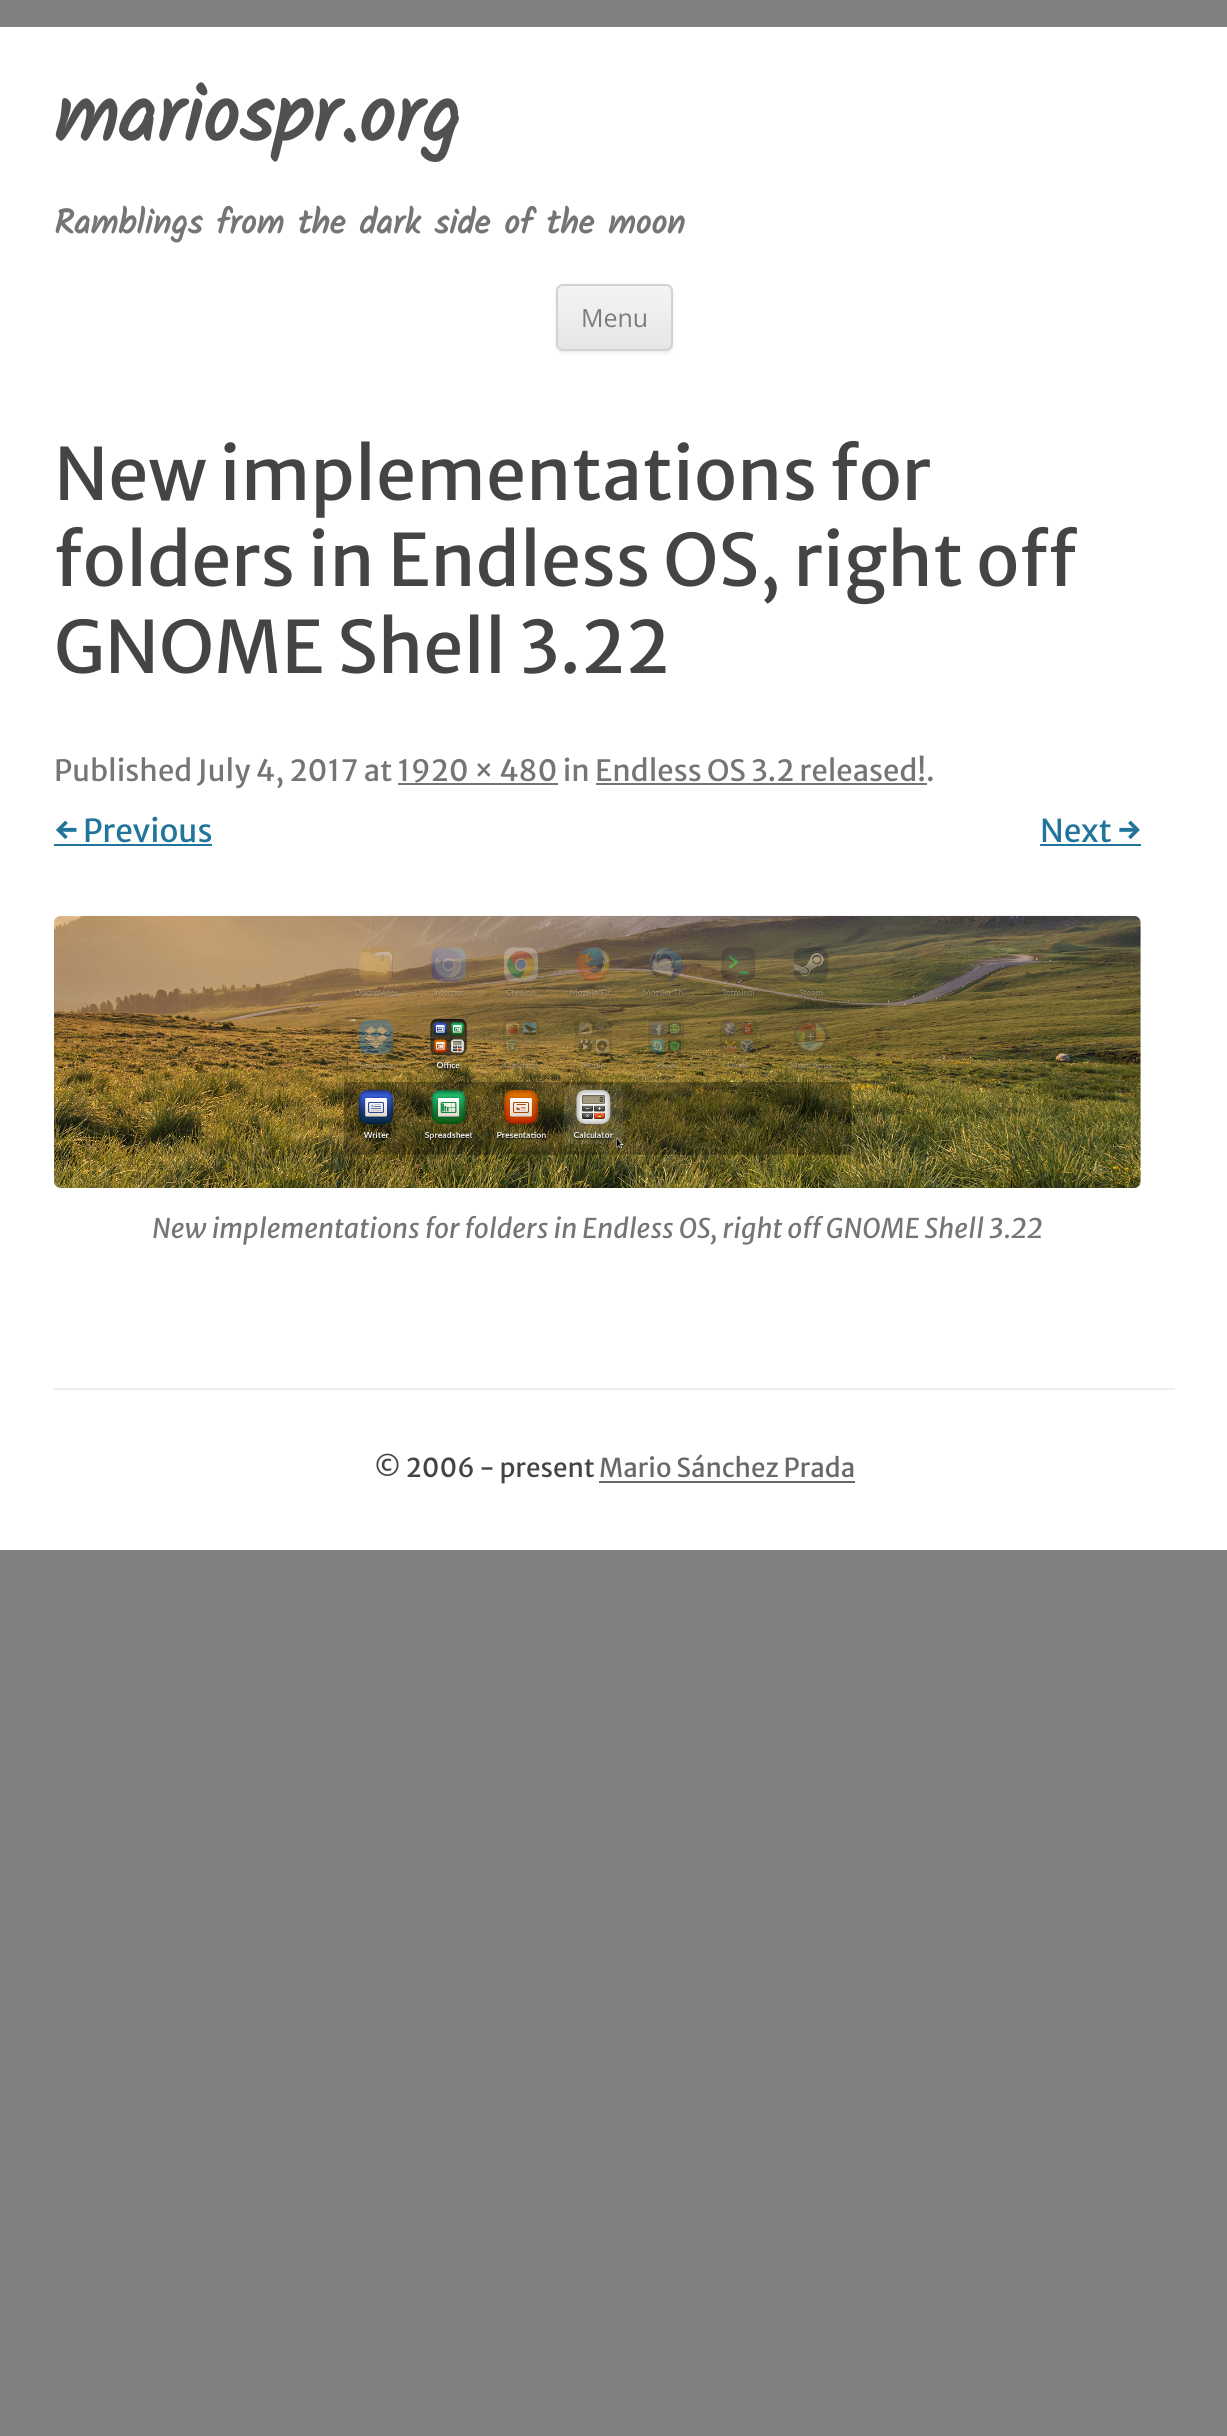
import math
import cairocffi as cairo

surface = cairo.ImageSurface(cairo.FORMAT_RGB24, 1227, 2436)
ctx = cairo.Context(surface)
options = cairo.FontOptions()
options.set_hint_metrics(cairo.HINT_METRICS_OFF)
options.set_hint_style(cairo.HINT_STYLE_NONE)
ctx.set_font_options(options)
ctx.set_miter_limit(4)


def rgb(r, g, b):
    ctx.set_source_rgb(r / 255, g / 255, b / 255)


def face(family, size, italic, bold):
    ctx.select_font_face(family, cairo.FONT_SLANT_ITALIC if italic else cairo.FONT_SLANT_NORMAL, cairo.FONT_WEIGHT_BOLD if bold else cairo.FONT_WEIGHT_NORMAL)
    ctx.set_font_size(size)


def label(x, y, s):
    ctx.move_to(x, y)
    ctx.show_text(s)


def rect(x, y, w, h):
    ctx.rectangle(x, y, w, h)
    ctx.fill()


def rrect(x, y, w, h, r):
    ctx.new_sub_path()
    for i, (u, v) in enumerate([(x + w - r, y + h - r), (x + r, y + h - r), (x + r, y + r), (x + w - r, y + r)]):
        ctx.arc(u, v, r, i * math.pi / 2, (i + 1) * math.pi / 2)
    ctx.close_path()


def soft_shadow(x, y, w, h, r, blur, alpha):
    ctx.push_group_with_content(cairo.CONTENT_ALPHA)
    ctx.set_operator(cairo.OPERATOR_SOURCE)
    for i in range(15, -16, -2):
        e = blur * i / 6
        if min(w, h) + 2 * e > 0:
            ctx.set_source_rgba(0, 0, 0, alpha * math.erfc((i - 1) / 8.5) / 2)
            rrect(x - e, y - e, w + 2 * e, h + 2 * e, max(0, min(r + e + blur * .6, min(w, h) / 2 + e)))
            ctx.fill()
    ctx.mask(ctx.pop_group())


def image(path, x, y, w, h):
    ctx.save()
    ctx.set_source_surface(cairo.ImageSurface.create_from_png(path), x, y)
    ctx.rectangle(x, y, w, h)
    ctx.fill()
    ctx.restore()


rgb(128, 128, 128)
ctx.paint()
rgb(255, 255, 255)
rect(0, 27, 1227, 1523)
face('Kalam', 81, 0, 1)
rgb(81, 81, 81)
label(54, 142, 'mariospr.org')
face('Kalam', 34.6, 0, 1)
rgb(117, 117, 117)
label(54, 234, 'Ramblings from the dark side of the moon')
rgb(64, 64, 64)
soft_shadow(556, 286, 117, 67, 7, 2, 0.1)
ctx.save()
rrect(556, 284, 117, 67, 7)
ctx.clip()
gradient = cairo.LinearGradient(614, 286, 614, 349)
gradient.add_color_stop_rgba(0, 0.957, 0.957, 0.957, 1)
gradient.add_color_stop_rgba(1, 0.902, 0.902, 0.902, 1)
ctx.set_source(gradient)
rect(556, 286, 117, 63)
ctx.restore()
rrect(557, 285, 115, 65, 6)
rgb(210, 210, 210)
ctx.stroke()
face('Open Sans', 25, 0, 0)
rgb(124, 124, 124)
label(581, 327, 'Menu')
face('Merriweather Sans', 72, 0, 0)
rgb(68, 68, 68)
label(54, 500, 'New implementations for')
label(54, 586, 'folders in Endless OS, right off')
label(54, 673, 'GNOME Shell 3.22')
face('Merriweather Sans', 29.25, 0, 0)
rgb(117, 117, 117)
label(54, 781, 'Published July 4, 2017 at 1920 × 480 in Endless OS 3.2 released!.')
rect(398, 783, 160, 2)
rect(596, 783, 331, 2)
face('Merriweather Sans', 31.5, 0, 0)
rgb(33, 117, 155)
label(54, 842, '← Previous')
rect(54, 844, 158, 2)
label(1040, 842, 'Next →')
rect(1040, 844, 101, 2)
image('image0.png', 54, 915, 1087, 273)
face('Merriweather Sans', 27, 1, 0)
rgb(117, 117, 117)
label(152, 1238, 'New implementations for folders in Endless OS, right off GNOME Shell 3.22')
rgb(237, 237, 237)
rect(54, 1388, 1121, 2)
face('Merriweather Sans', 26, 0, 0)
rgb(68, 68, 68)
label(374, 1477, '© 2006 - present')
rgb(104, 104, 104)
label(599, 1477, 'Mario Sánchez Prada')
rect(599, 1481, 256, 2)
surface.write_to_png('render.png')
